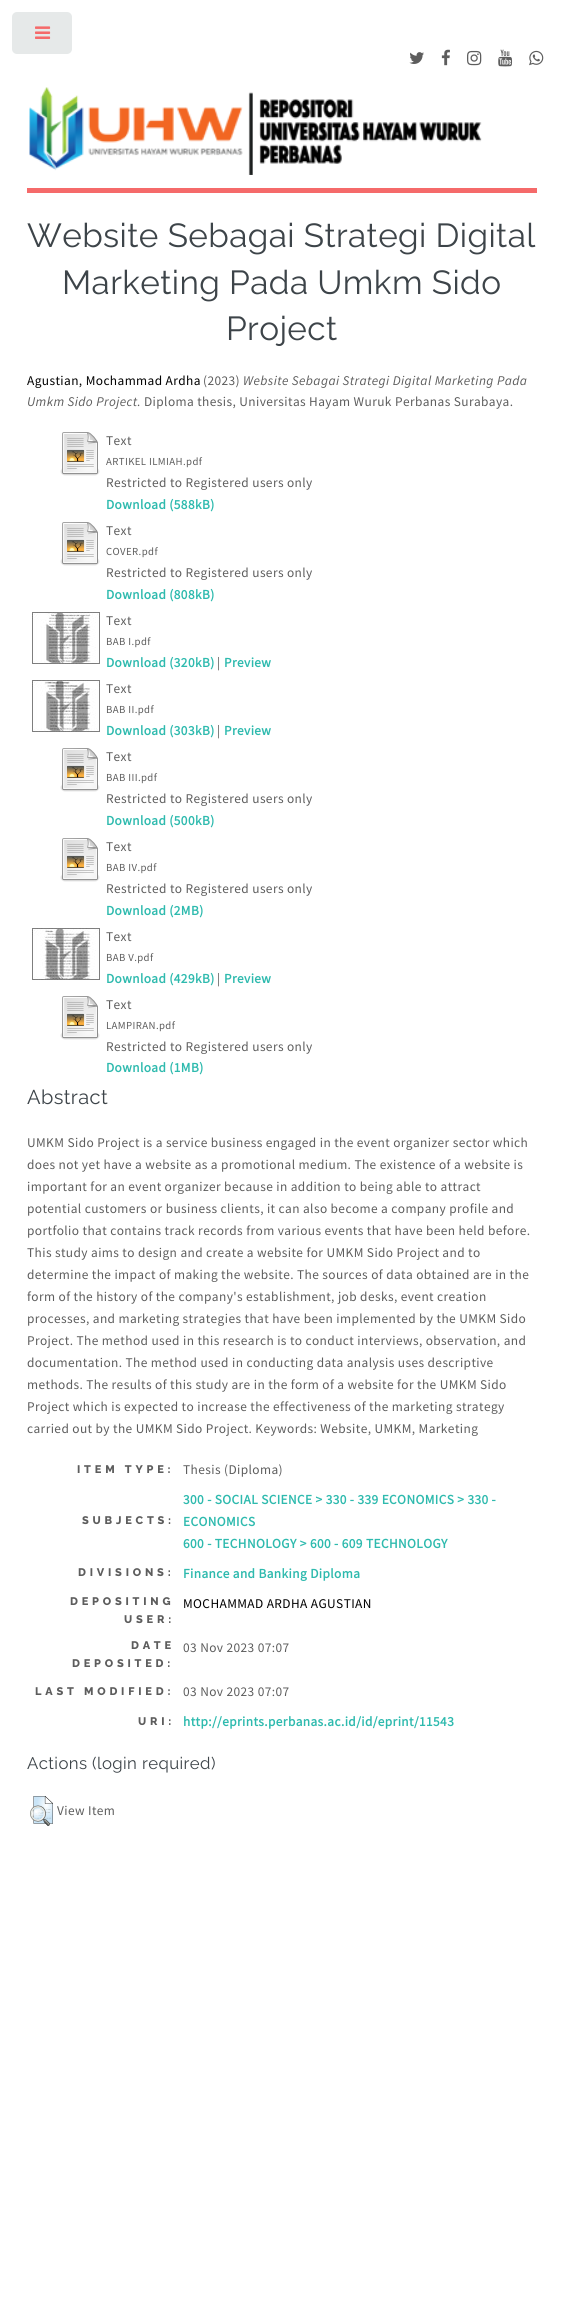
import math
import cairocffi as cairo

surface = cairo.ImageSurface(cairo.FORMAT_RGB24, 564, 2321)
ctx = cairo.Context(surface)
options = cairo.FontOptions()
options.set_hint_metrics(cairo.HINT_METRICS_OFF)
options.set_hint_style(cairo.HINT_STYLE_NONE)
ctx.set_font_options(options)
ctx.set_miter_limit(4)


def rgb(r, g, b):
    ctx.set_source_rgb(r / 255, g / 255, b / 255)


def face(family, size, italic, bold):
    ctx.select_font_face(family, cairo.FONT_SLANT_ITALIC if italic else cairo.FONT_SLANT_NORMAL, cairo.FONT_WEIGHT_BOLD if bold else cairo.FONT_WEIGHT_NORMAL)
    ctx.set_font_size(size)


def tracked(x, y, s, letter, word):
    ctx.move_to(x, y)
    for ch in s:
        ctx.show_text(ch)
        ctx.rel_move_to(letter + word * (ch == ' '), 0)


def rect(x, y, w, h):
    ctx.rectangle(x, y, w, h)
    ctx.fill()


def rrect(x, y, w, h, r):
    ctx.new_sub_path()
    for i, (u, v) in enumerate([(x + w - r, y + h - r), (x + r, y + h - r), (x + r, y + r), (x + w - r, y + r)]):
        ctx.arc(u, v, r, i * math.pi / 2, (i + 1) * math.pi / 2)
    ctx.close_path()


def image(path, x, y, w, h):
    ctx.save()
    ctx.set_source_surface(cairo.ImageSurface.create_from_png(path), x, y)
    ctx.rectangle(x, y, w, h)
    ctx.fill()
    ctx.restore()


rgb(255, 255, 255)
ctx.paint()
rgb(230, 233, 233)
rrect(12, 12, 60, 42, 5)
ctx.fill()
image('image0.png', 35, 26, 16, 13)
rgb(245, 106, 106)
rect(27, 188, 510, 5)
image('image1.png', 409, 52, 15, 12)
image('image2.png', 441, 49, 9, 17)
image('image3.png', 467, 50, 15, 16)
image('image4.png', 498, 49, 15, 18)
image('image5.png', 529, 50, 15, 16)
image('image6.png', 29, 87, 453, 88)
face('Raleway', 33.3, 0, 0)
rgb(61, 68, 73)
tracked(27, 247, 'Website Sebagai Strategi Digital', 0.4, 0)
tracked(62, 294, 'Marketing Pada Umkm Sido', 0.4, 0)
tracked(226, 340, 'Project', 0.4, 0)
face('Source Sans Pro', 13.35, 0, 0)
rgb(0, 0, 0)
tracked(27, 385, 'Agustian, Mochammad Ardha', 0.4, 0)
rgb(93, 93, 93)
tracked(203, 385, '(2023)', 0.4, 0)
face('Source Sans Pro', 13.35, 1, 0)
tracked(243, 385, 'Website Sebagai Strategi Digital Marketing Pada', 0.4, 0)
tracked(27, 406, 'Umkm Sido Project.', 0.4, 0)
face('Source Sans Pro', 13.35, 0, 0)
tracked(144, 406, 'Diploma thesis, Universitas Hayam Wuruk Perbanas Surabaya.', 0.4, 0)
image('image7.png', 60, 432, 40, 44)
tracked(106, 445, 'Text', 0.4, 0)
face('Source Sans Pro', 10.75, 0, 0)
tracked(106, 465, 'ARTIKEL ILMIAH.pdf', 0.4, 0)
face('Source Sans Pro', 13.35, 0, 0)
tracked(106, 487, 'Restricted to Registered users only', 0.4, 0)
face('Source Sans Pro', 13.35, 0, 1)
rgb(46, 186, 174)
tracked(106, 509, 'Download (588kB)', 0.4, 0)
image('image7.png', 60, 522, 40, 44)
face('Source Sans Pro', 13.35, 0, 0)
rgb(93, 93, 93)
tracked(106, 535, 'Text', 0.4, 0)
face('Source Sans Pro', 10.75, 0, 0)
tracked(106, 555, 'COVER.pdf', 0.4, 0)
face('Source Sans Pro', 13.35, 0, 0)
tracked(106, 577, 'Restricted to Registered users only', 0.4, 0)
face('Source Sans Pro', 13.35, 0, 1)
rgb(46, 186, 174)
tracked(106, 599, 'Download (808kB)', 0.4, 0)
image('image8.png', 32, 612, 68, 52)
face('Source Sans Pro', 13.35, 0, 0)
rgb(93, 93, 93)
tracked(106, 625, 'Text', 0.4, 0)
face('Source Sans Pro', 10.75, 0, 0)
tracked(106, 645, 'BAB I.pdf', 0.4, 0)
face('Source Sans Pro', 13.35, 0, 1)
rgb(46, 186, 174)
tracked(106, 667, 'Download (320kB)', 0.4, 0)
face('Source Sans Pro', 13.35, 0, 0)
rgb(93, 93, 93)
tracked(217, 667, '|', 0.4, 0)
face('Source Sans Pro', 13.35, 0, 1)
rgb(46, 186, 174)
tracked(224, 667, 'Preview', 0.4, 0)
image('image9.png', 32, 680, 68, 52)
face('Source Sans Pro', 13.35, 0, 0)
rgb(93, 93, 93)
tracked(106, 693, 'Text', 0.4, 0)
face('Source Sans Pro', 10.75, 0, 0)
tracked(106, 713, 'BAB II.pdf', 0.4, 0)
face('Source Sans Pro', 13.35, 0, 1)
rgb(46, 186, 174)
tracked(106, 735, 'Download (303kB)', 0.4, 0)
face('Source Sans Pro', 13.35, 0, 0)
rgb(93, 93, 93)
tracked(217, 735, '|', 0.4, 0)
face('Source Sans Pro', 13.35, 0, 1)
rgb(46, 186, 174)
tracked(224, 735, 'Preview', 0.4, 0)
image('image7.png', 60, 748, 40, 44)
face('Source Sans Pro', 13.35, 0, 0)
rgb(93, 93, 93)
tracked(106, 761, 'Text', 0.4, 0)
face('Source Sans Pro', 10.75, 0, 0)
tracked(106, 781, 'BAB III.pdf', 0.4, 0)
face('Source Sans Pro', 13.35, 0, 0)
tracked(106, 803, 'Restricted to Registered users only', 0.4, 0)
face('Source Sans Pro', 13.35, 0, 1)
rgb(46, 186, 174)
tracked(106, 825, 'Download (500kB)', 0.4, 0)
image('image7.png', 60, 838, 40, 44)
face('Source Sans Pro', 13.35, 0, 0)
rgb(93, 93, 93)
tracked(106, 851, 'Text', 0.4, 0)
face('Source Sans Pro', 10.75, 0, 0)
tracked(106, 871, 'BAB IV.pdf', 0.4, 0)
face('Source Sans Pro', 13.35, 0, 0)
tracked(106, 893, 'Restricted to Registered users only', 0.4, 0)
face('Source Sans Pro', 13.35, 0, 1)
rgb(46, 186, 174)
tracked(106, 915, 'Download (2MB)', 0.4, 0)
image('image10.png', 32, 928, 68, 52)
face('Source Sans Pro', 13.35, 0, 0)
rgb(93, 93, 93)
tracked(106, 941, 'Text', 0.4, 0)
face('Source Sans Pro', 10.75, 0, 0)
tracked(106, 961, 'BAB V.pdf', 0.4, 0)
face('Source Sans Pro', 13.35, 0, 1)
rgb(46, 186, 174)
tracked(106, 983, 'Download (429kB)', 0.4, 0)
face('Source Sans Pro', 13.35, 0, 0)
rgb(93, 93, 93)
tracked(217, 983, '|', 0.4, 0)
face('Source Sans Pro', 13.35, 0, 1)
rgb(46, 186, 174)
tracked(224, 983, 'Preview', 0.4, 0)
image('image7.png', 60, 996, 40, 44)
face('Source Sans Pro', 13.35, 0, 0)
rgb(93, 93, 93)
tracked(106, 1009, 'Text', 0.4, 0)
face('Source Sans Pro', 10.75, 0, 0)
tracked(106, 1029, 'LAMPIRAN.pdf', 0.4, 0)
face('Source Sans Pro', 13.35, 0, 0)
tracked(106, 1051, 'Restricted to Registered users only', 0.4, 0)
face('Source Sans Pro', 13.35, 0, 1)
rgb(46, 186, 174)
tracked(106, 1072, 'Download (1MB)', 0.4, 0)
face('Raleway', 20, 0, 0)
rgb(61, 68, 73)
tracked(27, 1104, 'Abstract', 0.4, 0)
face('Source Sans Pro', 13.35, 0, 0)
rgb(93, 93, 93)
tracked(27, 1147, 'UMKM Sido Project is a service business engaged in the event organizer sector which', 0.4, 0)
tracked(27, 1169, 'does not yet have a website as a promotional medium. The existence of a website is', 0.4, 0)
tracked(27, 1191, 'important for an event organizer because in addition to being able to attract', 0.4, 0)
tracked(27, 1213, 'potential customers or business clients, it can also become a company profile and', 0.4, 0)
tracked(27, 1235, 'portfolio that contains track records from various events that have been held before.', 0.4, 0)
tracked(27, 1257, 'This study aims to design and create a website for UMKM Sido Project and to', 0.4, 0)
tracked(27, 1279, 'determine the impact of making the website. The sources of data obtained are in the', 0.4, 0)
tracked(27, 1301, 'form of the history of the company\'s establishment, job desks, event creation', 0.4, 0)
tracked(27, 1323, 'processes, and marketing strategies that have been implemented by the UMKM Sido', 0.4, 0)
tracked(27, 1345, 'Project. The method used in this research is to conduct interviews, observation, and', 0.4, 0)
tracked(27, 1367, 'documentation. The method used in conducting data analysis uses descriptive', 0.4, 0)
tracked(27, 1389, 'methods. The results of this study are in the form of a website for the UMKM Sido', 0.4, 0)
tracked(27, 1411, 'Project which is expected to increase the effectiveness of the marketing strategy', 0.4, 0)
tracked(27, 1433, 'carried out by the UMKM Sido Project. Keywords: Website, UMKM, Marketing', 0.4, 0)
face('Raleway ExtraBold', 11, 0, 0)
tracked(77, 1473, 'ITEM TYPE:', 3.8, 0)
face('Source Sans Pro', 13.35, 0, 0)
tracked(183, 1474, 'Thesis (Diploma)', 0.4, 0)
face('Raleway ExtraBold', 11, 0, 0)
tracked(82, 1524, 'SUBJECTS:', 3.8, 0)
face('Source Sans Pro', 13.35, 0, 1)
rgb(46, 186, 174)
tracked(183, 1504, '300 - SOCIAL SCIENCE > 330 - 339 ECONOMICS > 330 -', 0.4, 0)
tracked(183, 1526, 'ECONOMICS', 0.4, 0)
tracked(183, 1548, '600 - TECHNOLOGY > 600 - 609 TECHNOLOGY', 0.4, 0)
face('Raleway ExtraBold', 11, 0, 0)
rgb(93, 93, 93)
tracked(78, 1576, 'DIVISIONS:', 3.8, 0)
face('Source Sans Pro', 13.35, 0, 1)
rgb(46, 186, 174)
tracked(183, 1578, 'Finance and Banking Diploma', 0.4, 0)
face('Raleway ExtraBold', 11, 0, 0)
rgb(93, 93, 93)
tracked(70, 1605, 'DEPOSITING', 3.8, 0)
tracked(124, 1623, 'USER:', 3.8, 0)
face('Source Sans Pro', 13.35, 0, 0)
rgb(0, 0, 0)
tracked(183, 1608, 'MOCHAMMAD ARDHA AGUSTIAN', 0.4, 0)
face('Raleway ExtraBold', 11, 0, 0)
rgb(93, 93, 93)
tracked(131, 1649, 'DATE', 3.8, 0)
tracked(72, 1667, 'DEPOSITED:', 3.8, 0)
face('Source Sans Pro', 13.35, 0, 0)
tracked(183, 1652, '03 Nov 2023 07:07', 0.4, 0)
face('Raleway ExtraBold', 11, 0, 0)
tracked(35, 1695, 'LAST MODIFIED:', 3.8, 0)
face('Source Sans Pro', 13.35, 0, 0)
tracked(183, 1696, '03 Nov 2023 07:07', 0.4, 0)
face('Raleway ExtraBold', 11, 0, 0)
tracked(138, 1725, 'URI:', 3.8, 0)
face('Source Sans Pro', 13.35, 0, 1)
rgb(46, 186, 174)
tracked(183, 1726, 'http://eprints.perbanas.ac.id/id/eprint/11543', 0.4, 0)
face('Raleway', 16.75, 0, 0)
rgb(61, 68, 73)
tracked(27, 1769, 'Actions (login required)', 0.4, 0)
image('image11.png', 30, 1796, 23, 30)
face('Source Sans Pro', 13.35, 0, 0)
rgb(93, 93, 93)
tracked(57, 1815, 'View Item', 0.4, 0)
surface.write_to_png('render.png')
